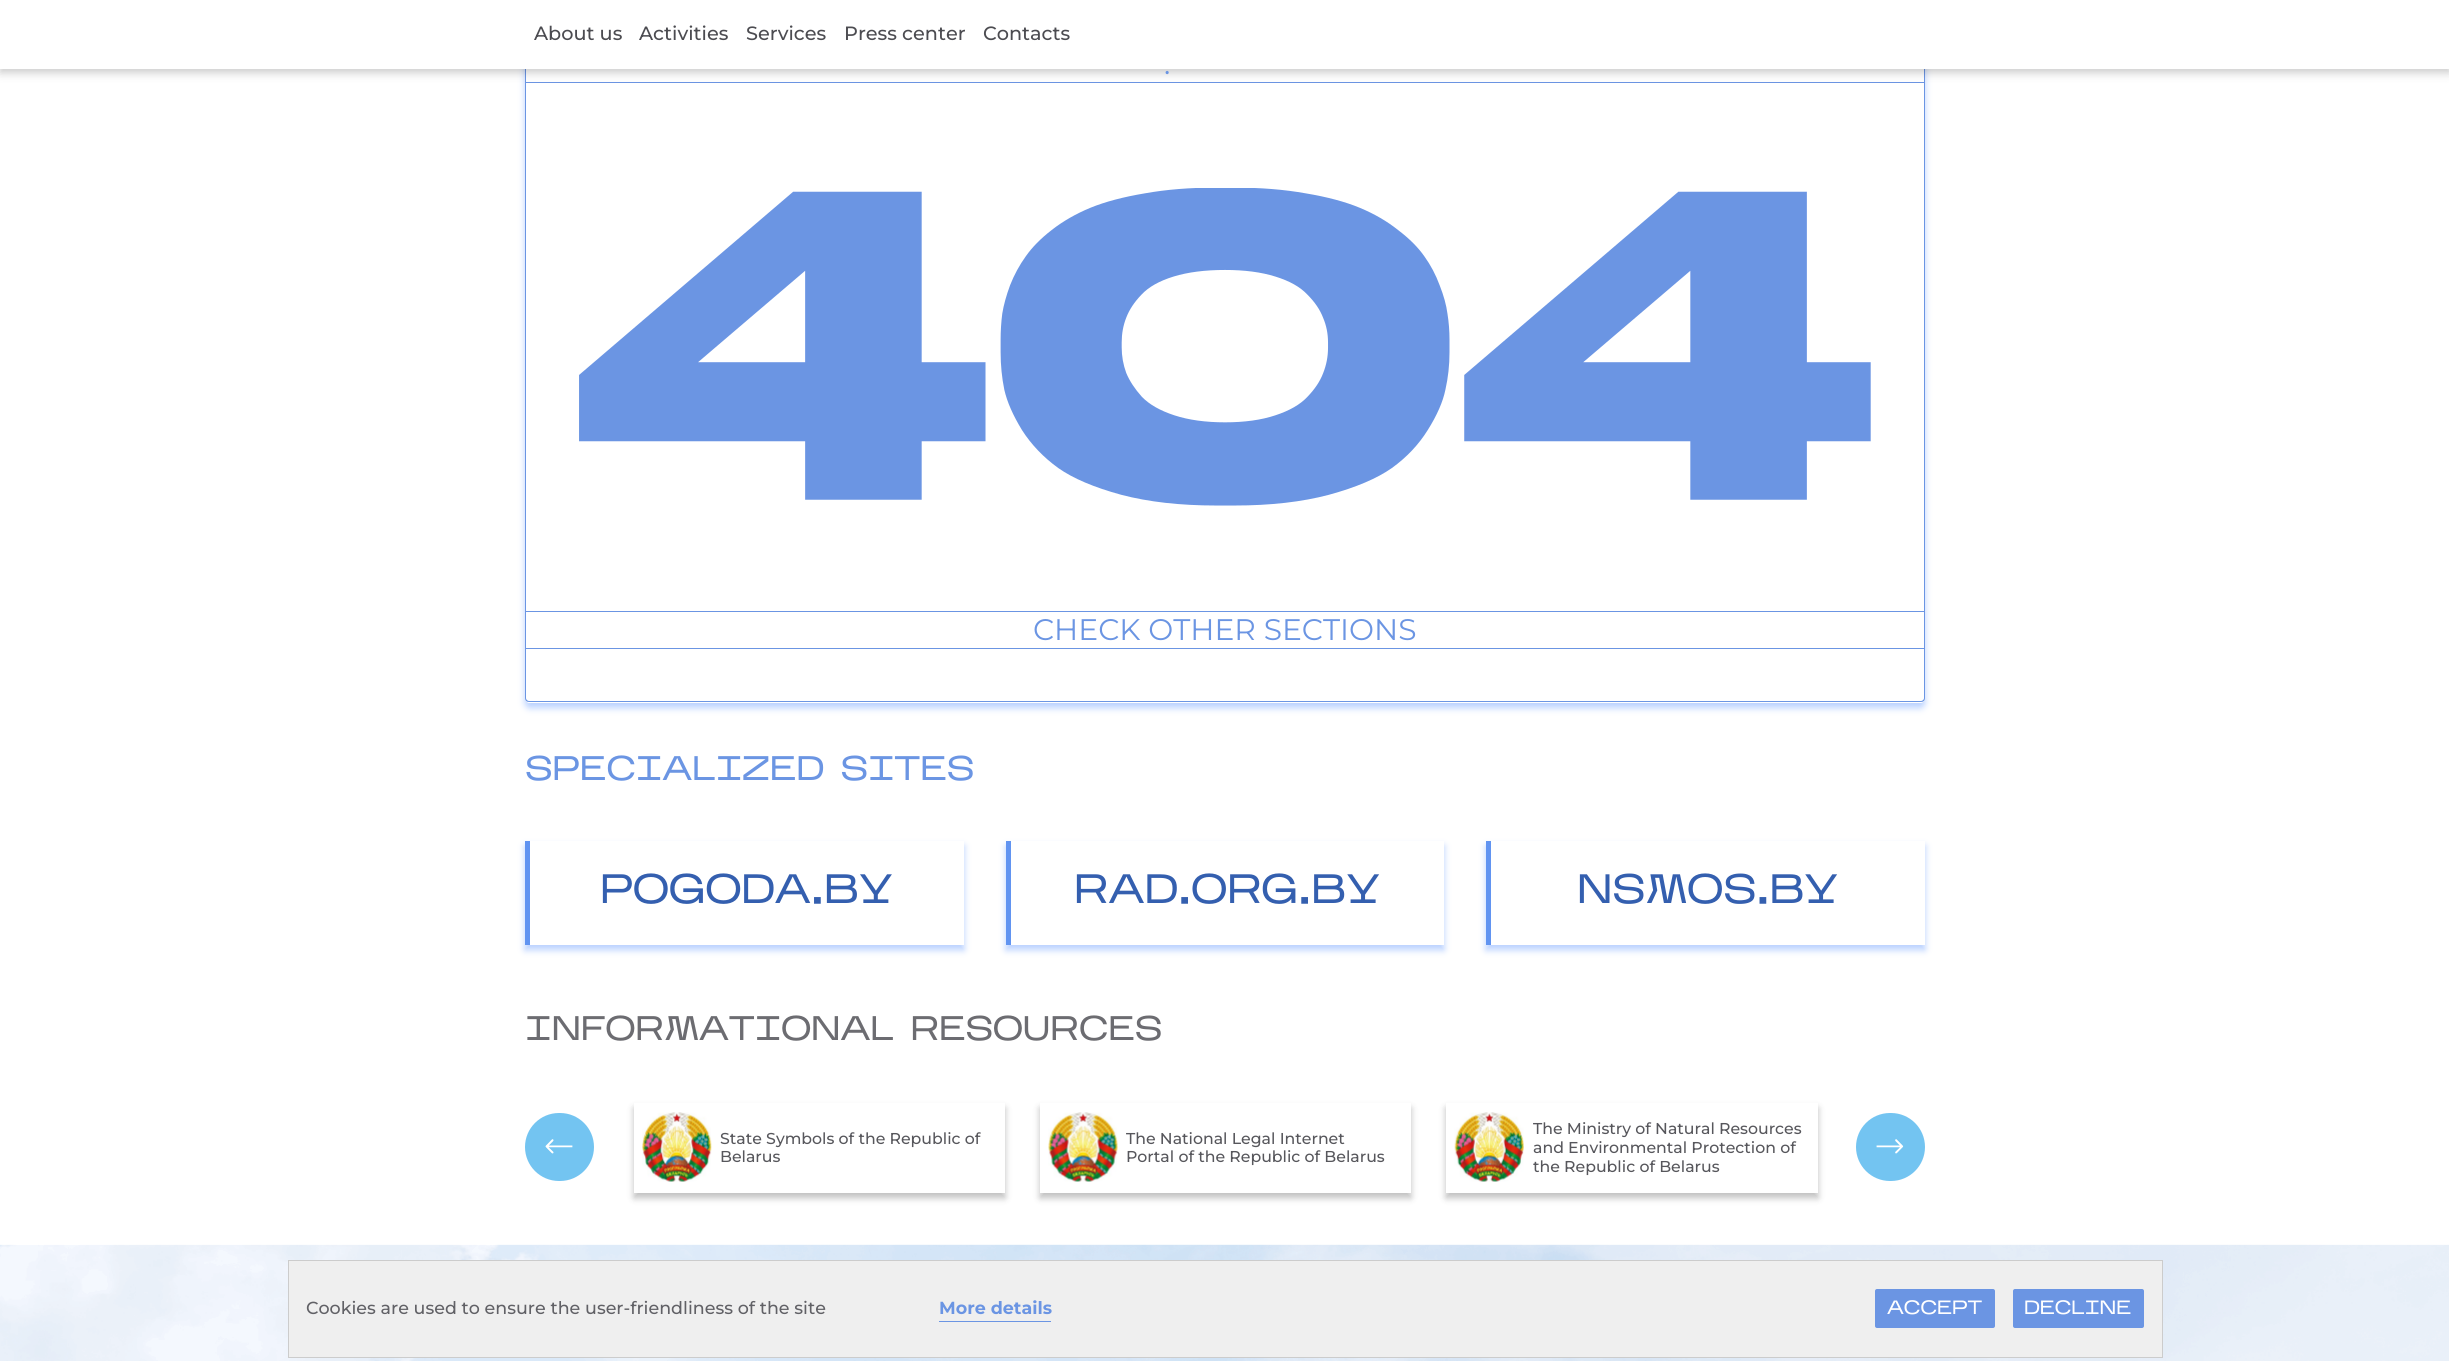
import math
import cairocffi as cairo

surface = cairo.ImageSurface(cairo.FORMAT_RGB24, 2449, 1361)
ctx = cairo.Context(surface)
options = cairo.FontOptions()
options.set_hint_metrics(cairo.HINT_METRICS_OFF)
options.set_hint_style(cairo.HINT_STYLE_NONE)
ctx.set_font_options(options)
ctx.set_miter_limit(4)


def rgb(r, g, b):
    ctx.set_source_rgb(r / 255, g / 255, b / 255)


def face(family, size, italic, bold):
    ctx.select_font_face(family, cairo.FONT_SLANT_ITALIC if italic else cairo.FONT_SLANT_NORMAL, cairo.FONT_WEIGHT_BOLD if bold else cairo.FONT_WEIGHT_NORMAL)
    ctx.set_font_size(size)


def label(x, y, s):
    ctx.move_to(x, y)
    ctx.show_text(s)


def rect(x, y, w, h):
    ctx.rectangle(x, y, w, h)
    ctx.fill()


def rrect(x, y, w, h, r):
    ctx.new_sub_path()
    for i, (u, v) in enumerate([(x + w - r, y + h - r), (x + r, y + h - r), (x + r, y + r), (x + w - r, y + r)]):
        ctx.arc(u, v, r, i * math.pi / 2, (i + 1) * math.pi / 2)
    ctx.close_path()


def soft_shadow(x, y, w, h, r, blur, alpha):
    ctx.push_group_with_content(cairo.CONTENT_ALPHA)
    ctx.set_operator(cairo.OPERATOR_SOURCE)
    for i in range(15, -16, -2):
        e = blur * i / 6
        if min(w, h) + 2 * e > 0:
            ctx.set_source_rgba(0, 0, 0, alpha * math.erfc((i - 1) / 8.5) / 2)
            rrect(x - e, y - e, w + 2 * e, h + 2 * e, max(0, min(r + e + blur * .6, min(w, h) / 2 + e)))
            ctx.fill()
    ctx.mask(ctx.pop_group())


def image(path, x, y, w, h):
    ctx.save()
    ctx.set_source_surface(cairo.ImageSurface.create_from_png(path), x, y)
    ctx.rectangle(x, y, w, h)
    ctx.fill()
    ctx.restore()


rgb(255, 255, 255)
ctx.paint()
ctx.save()
ctx.set_fill_rule(cairo.FILL_RULE_EVEN_ODD)
ctx.new_path()
ctx.move_to(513, 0)
ctx.line_to(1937, 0)
ctx.line_to(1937, 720)
ctx.line_to(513, 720)
ctx.close_path()
ctx.move_to(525, -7)
ctx.line_to(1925, -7)
ctx.line_to(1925, 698)
ctx.curve_to(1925, 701, 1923, 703, 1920, 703)
ctx.line_to(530, 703)
ctx.curve_to(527, 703, 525, 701, 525, 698)
ctx.close_path()
ctx.clip()
rgb(185, 209, 255)
soft_shadow(525, -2, 1400, 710, 5, 3.5, 1)
ctx.restore()
rgb(107, 149, 227)
ctx.set_fill_rule(cairo.FILL_RULE_EVEN_ODD)
ctx.new_path()
ctx.move_to(525, -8)
ctx.line_to(1925, -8)
ctx.line_to(1925, 698)
ctx.curve_to(1925, 701, 1923, 702, 1921, 702)
ctx.line_to(529, 702)
ctx.curve_to(527, 702, 525, 701, 525, 698)
ctx.close_path()
ctx.move_to(526, -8)
ctx.line_to(1924, -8)
ctx.line_to(1924, 698)
ctx.curve_to(1924, 700, 1922, 701, 1921, 701)
ctx.line_to(529, 701)
ctx.curve_to(528, 701, 526, 700, 526, 698)
ctx.close_path()
ctx.fill()
ctx.rectangle(525.5, 45.5, 1399, 37)
ctx.set_line_width(1)
ctx.stroke()
rgb(0, 0, 0)
soft_shadow(0, 4, 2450, 69, 0, 4.5, 0.2)
rgb(255, 255, 255)
rect(0, 0, 2449, 69)
face('Montserrat Medium', 19.25, 0, 0)
rgb(76, 76, 81)
label(534, 40, 'About us')
label(639, 40, 'Activities')
label(746, 40, 'Services')
label(844, 40, 'Press center')
label(983, 40, 'Contacts')
face('Montserrat', 29.75, 0, 0)
rgb(107, 149, 227)
label(1164, 74, '.')
image('image0.png', 579, 188, 1292, 318)
ctx.rectangle(525.5, 611.5, 1399, 37)
ctx.stroke()
label(1033, 640, 'CHECK OTHER SECTIONS')
face('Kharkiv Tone', 34.1, 0, 0)
label(525, 780, 'SPECIALIZED SITES')
ctx.save()
ctx.new_path()
ctx.move_to(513, 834)
ctx.line_to(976, 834)
ctx.line_to(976, 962)
ctx.line_to(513, 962)
ctx.close_path()
ctx.move_to(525, 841)
ctx.line_to(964, 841)
ctx.line_to(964, 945)
ctx.line_to(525, 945)
ctx.close_path()
ctx.clip()
rgb(185, 209, 255)
soft_shadow(525, 846, 439, 104, 0, 3.5, 1)
ctx.restore()
rgb(97, 148, 241)
rect(525, 841, 5, 104)
face('Kharkiv Tone', 41, 0, 0)
rgb(52, 95, 175)
label(600, 903, 'POGODA.BY')
ctx.save()
ctx.new_path()
ctx.move_to(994, 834)
ctx.line_to(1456, 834)
ctx.line_to(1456, 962)
ctx.line_to(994, 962)
ctx.close_path()
ctx.move_to(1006, 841)
ctx.line_to(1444, 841)
ctx.line_to(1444, 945)
ctx.line_to(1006, 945)
ctx.close_path()
ctx.clip()
rgb(185, 209, 255)
soft_shadow(1006, 846, 438, 104, 0, 3.5, 1)
ctx.restore()
rgb(97, 148, 241)
rect(1006, 841, 5, 104)
rgb(52, 95, 175)
label(1074, 903, 'RAD.ORG.BY')
ctx.save()
ctx.new_path()
ctx.move_to(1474, 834)
ctx.line_to(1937, 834)
ctx.line_to(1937, 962)
ctx.line_to(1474, 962)
ctx.close_path()
ctx.move_to(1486, 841)
ctx.line_to(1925, 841)
ctx.line_to(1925, 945)
ctx.line_to(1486, 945)
ctx.close_path()
ctx.clip()
rgb(185, 209, 255)
soft_shadow(1486, 846, 439, 104, 0, 3.5, 1)
ctx.restore()
rgb(97, 148, 241)
rect(1486, 841, 5, 104)
rgb(52, 95, 175)
label(1577, 903, 'NSMOS.BY')
face('Kharkiv Tone', 34.1, 0, 0)
rgb(108, 108, 113)
label(525, 1040, 'INFORMATIONAL RESOURCES')
rgb(115, 196, 241)
rrect(525, 1113, 69, 68, 34)
ctx.fill()
image('image1.png', 545, 1139, 28, 15)
ctx.save()
ctx.new_path()
ctx.move_to(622, 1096)
ctx.line_to(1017, 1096)
ctx.line_to(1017, 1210)
ctx.line_to(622, 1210)
ctx.close_path()
ctx.move_to(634, 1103)
ctx.line_to(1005, 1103)
ctx.line_to(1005, 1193)
ctx.line_to(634, 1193)
ctx.close_path()
ctx.clip()
rgb(0, 0, 0)
soft_shadow(634, 1108, 371, 90, 0, 3.5, 0.25)
ctx.restore()
image('image2.png', 642, 1112, 70, 70)
face('Montserrat Medium', 15.75, 0, 0)
rgb(87, 87, 92)
label(720, 1144, 'State Symbols of the Republic of')
label(720, 1162, 'Belarus')
ctx.save()
ctx.new_path()
ctx.move_to(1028, 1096)
ctx.line_to(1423, 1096)
ctx.line_to(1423, 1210)
ctx.line_to(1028, 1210)
ctx.close_path()
ctx.move_to(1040, 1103)
ctx.line_to(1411, 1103)
ctx.line_to(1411, 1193)
ctx.line_to(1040, 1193)
ctx.close_path()
ctx.clip()
rgb(0, 0, 0)
soft_shadow(1040, 1108, 371, 90, 0, 3.5, 0.25)
ctx.restore()
image('image3.png', 1048, 1112, 70, 70)
label(1126, 1144, 'The National Legal Internet')
label(1126, 1162, 'Portal of the Republic of Belarus')
ctx.save()
ctx.new_path()
ctx.move_to(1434, 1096)
ctx.line_to(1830, 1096)
ctx.line_to(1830, 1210)
ctx.line_to(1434, 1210)
ctx.close_path()
ctx.move_to(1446, 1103)
ctx.line_to(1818, 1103)
ctx.line_to(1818, 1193)
ctx.line_to(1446, 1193)
ctx.close_path()
ctx.clip()
rgb(0, 0, 0)
soft_shadow(1446, 1108, 372, 90, 0, 3.5, 0.25)
ctx.restore()
image('image4.png', 1454, 1112, 70, 70)
label(1533, 1134, 'The Ministry of Natural Resources')
label(1533, 1153, 'and Environmental Protection of')
label(1533, 1172, 'the Republic of Belarus')
rgb(115, 196, 241)
rrect(1856, 1113, 69, 68, 34)
ctx.fill()
image('image5.png', 1876, 1139, 28, 15)
rgb(239, 245, 255)
rect(0, 1245, 2449, 116)
image('image6.png', 0, 1244, 2449, 117)
rgb(239, 239, 239)
ctx.rectangle(288.5, 1260.5, 1874, 97)
ctx.fill_preserve()
rgb(204, 204, 204)
ctx.stroke()
face('Montserrat Medium', 17.5, 0, 0)
rgb(97, 97, 102)
label(306, 1314, 'Cookies are used to ensure the user-friendliness of the site')
face('Montserrat', 17.5, 0, 1)
rgb(107, 149, 227)
label(939, 1314, 'More details')
rect(939, 1321, 112, 1)
rrect(1875, 1289, 120, 39, 2)
ctx.fill()
face('Kharkiv Tone', 19.25, 0, 0)
rgb(255, 255, 255)
label(1887, 1314, 'ACCEPT')
rgb(107, 149, 227)
rrect(2013, 1289, 131, 39, 2)
ctx.fill()
rgb(255, 255, 255)
label(2024, 1314, 'DECLINE')
surface.write_to_png('render.png')
